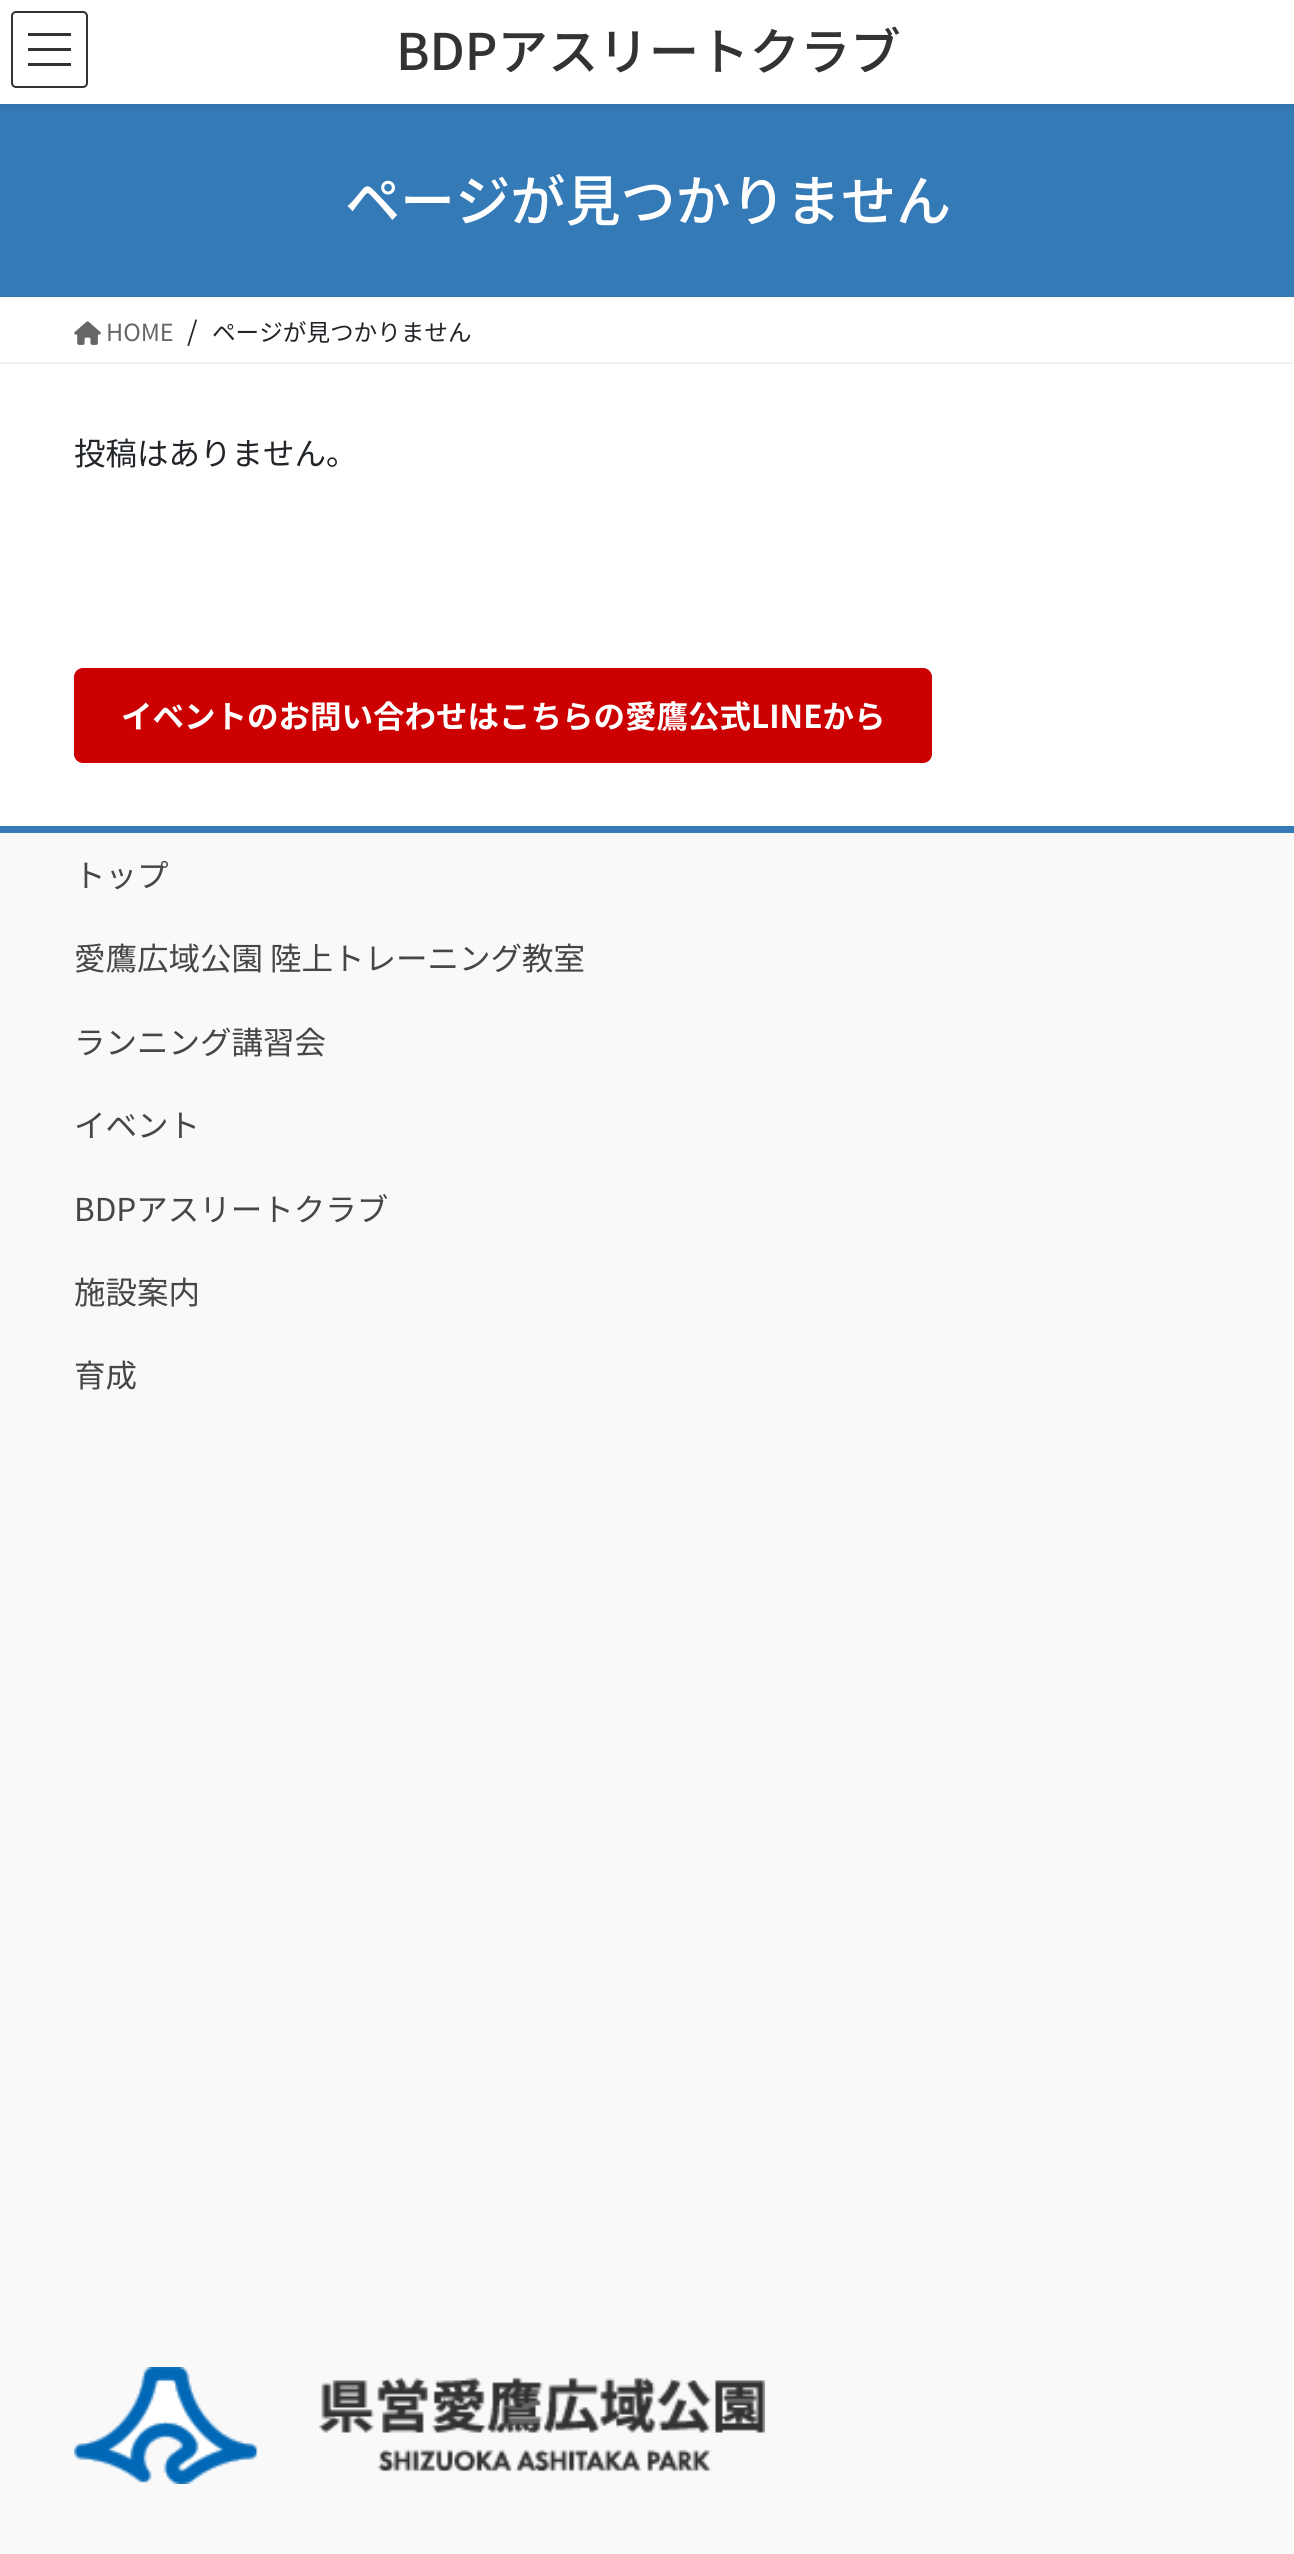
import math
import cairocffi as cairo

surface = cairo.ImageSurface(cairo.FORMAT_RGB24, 1294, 2554)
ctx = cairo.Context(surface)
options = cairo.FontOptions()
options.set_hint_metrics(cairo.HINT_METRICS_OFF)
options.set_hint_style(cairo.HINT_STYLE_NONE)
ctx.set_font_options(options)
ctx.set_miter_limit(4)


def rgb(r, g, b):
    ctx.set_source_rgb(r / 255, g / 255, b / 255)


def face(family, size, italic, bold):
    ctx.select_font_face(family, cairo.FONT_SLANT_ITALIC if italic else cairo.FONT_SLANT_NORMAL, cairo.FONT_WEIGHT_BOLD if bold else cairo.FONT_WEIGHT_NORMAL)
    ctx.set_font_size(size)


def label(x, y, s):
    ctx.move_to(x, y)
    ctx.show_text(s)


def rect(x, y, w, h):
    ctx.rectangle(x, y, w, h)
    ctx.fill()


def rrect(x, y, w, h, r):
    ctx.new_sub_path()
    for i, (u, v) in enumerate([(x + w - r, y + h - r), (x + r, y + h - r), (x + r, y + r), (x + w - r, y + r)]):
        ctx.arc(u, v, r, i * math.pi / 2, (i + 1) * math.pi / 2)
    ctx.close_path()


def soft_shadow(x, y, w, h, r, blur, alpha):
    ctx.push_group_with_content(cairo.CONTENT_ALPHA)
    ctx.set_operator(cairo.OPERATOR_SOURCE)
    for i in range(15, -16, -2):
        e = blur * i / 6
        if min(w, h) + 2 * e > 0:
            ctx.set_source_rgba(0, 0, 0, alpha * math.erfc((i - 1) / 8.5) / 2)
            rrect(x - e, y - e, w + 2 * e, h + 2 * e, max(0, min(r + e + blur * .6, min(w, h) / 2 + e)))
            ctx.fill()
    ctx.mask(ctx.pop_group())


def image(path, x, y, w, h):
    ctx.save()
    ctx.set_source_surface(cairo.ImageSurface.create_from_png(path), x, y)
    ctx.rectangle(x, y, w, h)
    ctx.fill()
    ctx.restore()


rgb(255, 255, 255)
ctx.paint()
rgb(51, 122, 183)
rect(0, 104, 1294, 193)
rgb(0, 0, 0)
soft_shadow(0, 2, 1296, 104, 0, 3.5, 0.1)
rgb(255, 255, 255)
rect(0, 0, 1294, 104)
rgb(51, 51, 51)
rect(28, 33, 43, 3)
rect(28, 48, 43, 3)
rect(28, 63, 43, 3)
rrect(12, 12, 75, 75, 4)
ctx.stroke()
face('Noto Sans JP Medium', 50.4, 0, 0)
label(396, 70, 'BDPアスリートクラブ')
face('Noto Sans JP Medium', 55.1, 0, 0)
rgb(255, 255, 255)
label(345, 221, 'ページが見つかりません')
rgb(242, 242, 242)
rect(0, 362, 1294, 2)
image('image0.png', 74, 321, 27, 24)
face('Noto Sans JP', 23.6, 0, 0)
rgb(102, 102, 102)
label(106, 341, 'HOME')
face('Noto Sans JP', 27, 0, 0)
rgb(33, 37, 41)
label(187, 341, '/')
face('Noto Sans JP', 23.6, 0, 0)
label(212, 341, 'ページが見つかりません')
face('Noto Sans JP', 31.5, 0, 0)
label(74, 465, '投稿はありません。')
rgb(204, 0, 0)
rrect(74, 668, 858, 95, 9)
ctx.fill()
face('Noto Sans JP', 31.5, 0, 1)
rgb(255, 255, 255)
label(121, 728, 'イベントのお問い合わせはこちらの愛鷹公式LINEから')
rgb(249, 249, 249)
rect(0, 833, 1294, 1721)
rgb(51, 122, 183)
rect(0, 826, 1294, 7)
face('Noto Sans JP', 31.5, 0, 0)
rgb(70, 70, 70)
label(74, 887, 'トップ')
label(74, 970, '愛鷹広域公園 陸上トレーニング教室')
label(74, 1054, 'ランニング講習会')
label(74, 1137, 'イベント')
label(74, 1221, 'BDPアスリートクラブ')
label(74, 1304, '施設案内')
label(74, 1387, '育成')
image('image1.png', 74, 2367, 691, 117)
surface.write_to_png('render.png')
